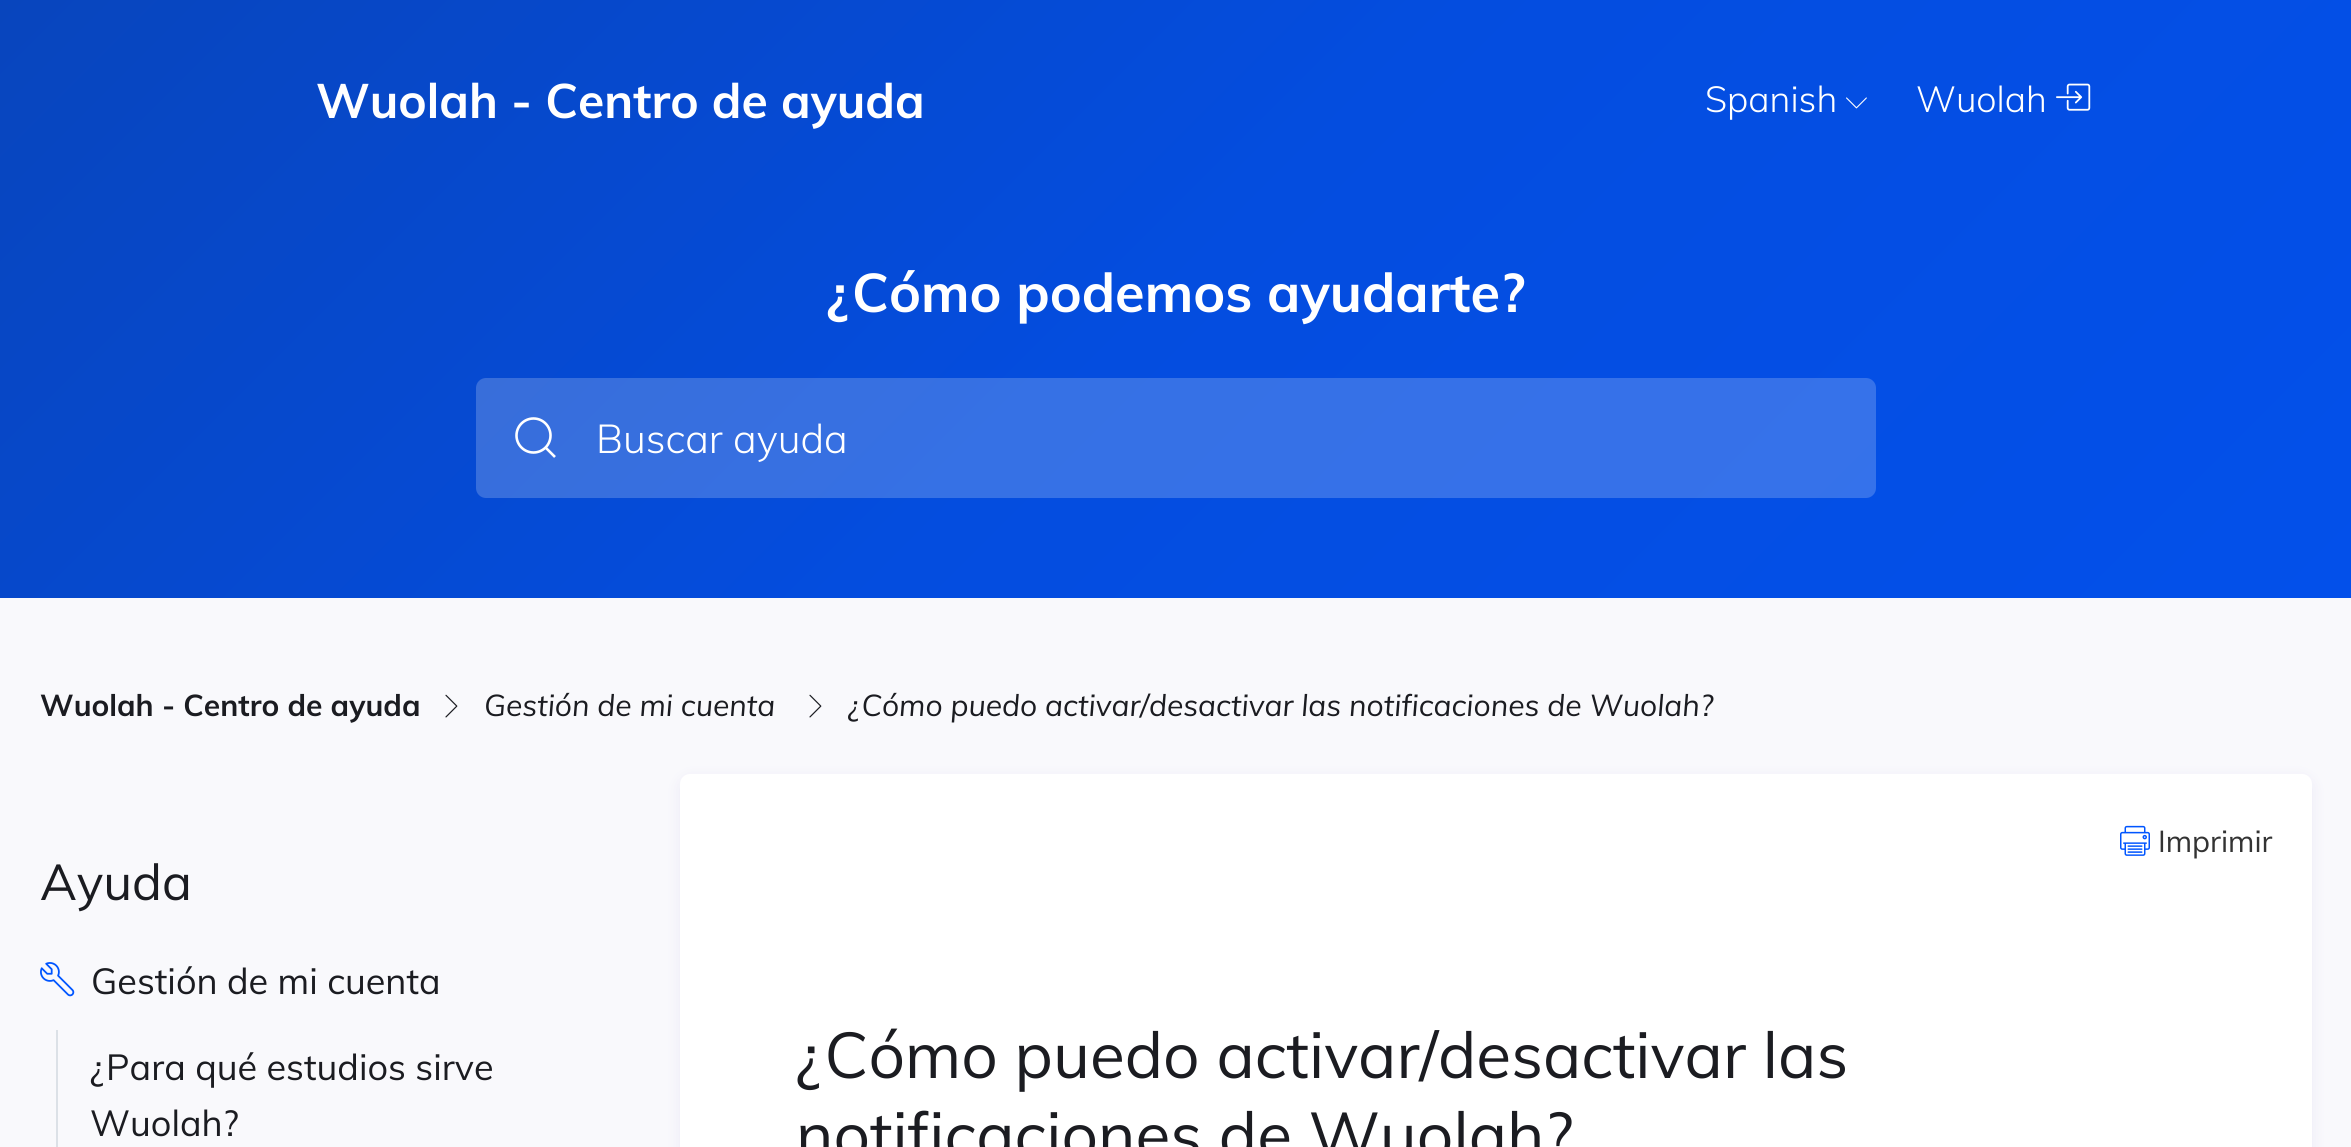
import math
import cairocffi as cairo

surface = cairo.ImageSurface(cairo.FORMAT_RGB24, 2351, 1147)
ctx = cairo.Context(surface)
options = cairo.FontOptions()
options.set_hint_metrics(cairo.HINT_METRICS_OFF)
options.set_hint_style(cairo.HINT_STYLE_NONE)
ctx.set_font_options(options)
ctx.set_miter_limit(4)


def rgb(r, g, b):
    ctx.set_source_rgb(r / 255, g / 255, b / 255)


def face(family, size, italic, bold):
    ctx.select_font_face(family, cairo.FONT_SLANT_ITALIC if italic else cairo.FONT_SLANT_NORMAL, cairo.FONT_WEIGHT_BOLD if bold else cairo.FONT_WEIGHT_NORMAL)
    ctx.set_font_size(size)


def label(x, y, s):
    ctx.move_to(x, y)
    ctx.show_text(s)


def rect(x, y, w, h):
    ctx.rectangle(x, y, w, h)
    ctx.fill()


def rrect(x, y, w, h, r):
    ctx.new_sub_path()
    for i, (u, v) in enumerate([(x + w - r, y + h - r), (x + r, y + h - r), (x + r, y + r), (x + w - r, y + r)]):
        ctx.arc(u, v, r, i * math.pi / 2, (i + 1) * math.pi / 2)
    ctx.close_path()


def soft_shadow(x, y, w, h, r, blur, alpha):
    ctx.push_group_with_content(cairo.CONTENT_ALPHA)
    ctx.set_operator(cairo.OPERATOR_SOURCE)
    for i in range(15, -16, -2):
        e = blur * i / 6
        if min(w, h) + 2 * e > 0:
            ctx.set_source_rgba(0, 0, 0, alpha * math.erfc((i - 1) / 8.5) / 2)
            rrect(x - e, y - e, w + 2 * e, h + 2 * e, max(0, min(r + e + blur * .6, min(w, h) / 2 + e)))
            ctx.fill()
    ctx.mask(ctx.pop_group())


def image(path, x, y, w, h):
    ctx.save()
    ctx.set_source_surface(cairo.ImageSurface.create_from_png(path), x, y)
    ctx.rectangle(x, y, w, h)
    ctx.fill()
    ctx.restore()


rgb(255, 255, 255)
ctx.paint()
gradient = cairo.LinearGradient(439, -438, 1914, 1037)
gradient.add_color_stop_rgba(0, 0.031, 0.271, 0.741, 1)
gradient.add_color_stop_rgba(0.5, 0.016, 0.302, 0.875, 1)
gradient.add_color_stop_rgba(1, 0.012, 0.314, 0.918, 1)
ctx.set_source(gradient)
rect(0, 0, 2351, 598)
face('Muli', 48, 0, 1)
rgb(255, 255, 255)
label(316, 118, 'Wuolah - Centro de ayuda')
face('Muli Light', 36, 0, 0)
label(1705, 112, 'Spanish')
image('image0.png', 1846, 97, 21, 12)
label(1916, 112, 'Wuolah')
image('image1.png', 2056, 83, 35, 28)
face('Muli', 54, 0, 1)
label(827, 312, '¿Cómo podemos ayudarte?')
ctx.set_source_rgba(1, 1, 1, 0.2)
rrect(476, 378, 1400, 120, 10)
ctx.fill()
ctx.arc(533.5, 435.5, 17, 0, 2 * math.pi)
rgb(255, 255, 255)
ctx.set_line_width(2.6)
ctx.stroke()
ctx.new_path()
ctx.move_to(545.5, 447.5)
ctx.line_to(555, 457)
ctx.close_path()
ctx.stroke()
face('Muli Light', 40, 0, 0)
label(596, 453, 'Buscar ayuda')
rgb(249, 249, 252)
rect(0, 598, 2351, 549)
face('Muli', 30, 0, 1)
rgb(27, 28, 33)
label(40, 716, 'Wuolah - Centro de ayuda')
image('image2.png', 445, 694, 13, 24)
face('Muli', 30, 1, 0)
label(484, 716, 'Gestión de mi cuenta')
image('image2.png', 809, 694, 13, 24)
label(848, 716, '¿Cómo puedo activar/desactivar las notificaciones de Wuolah?')
face('Muli', 50, 0, 0)
label(40, 900, 'Ayuda')
image('image3.png', 40, 962, 35, 35)
face('Muli', 36, 0, 0)
label(91, 994, 'Gestión de mi cuenta')
rgb(220, 225, 231)
rect(56, 1030, 2, 117)
rgb(27, 28, 33)
label(90, 1080, '¿Para qué estudios sirve')
label(90, 1136, 'Wuolah?')
rgb(88, 58, 188)
soft_shadow(680, 778, 1632, 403, 10, 8, 0.08)
rgb(255, 255, 255)
rrect(680, 774, 1632, 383, 10)
ctx.fill()
image('image4.png', 2120, 825, 30, 31)
face('Muli', 30, 0, 0)
rgb(51, 51, 51)
label(2158, 852, 'Imprimir')
face('Muli', 64, 0, 0)
rgb(27, 28, 33)
label(796, 1078, '¿Cómo puedo activar/desactivar las')
label(796, 1158, 'notificaciones de Wuolah?')
surface.write_to_png('render.png')
